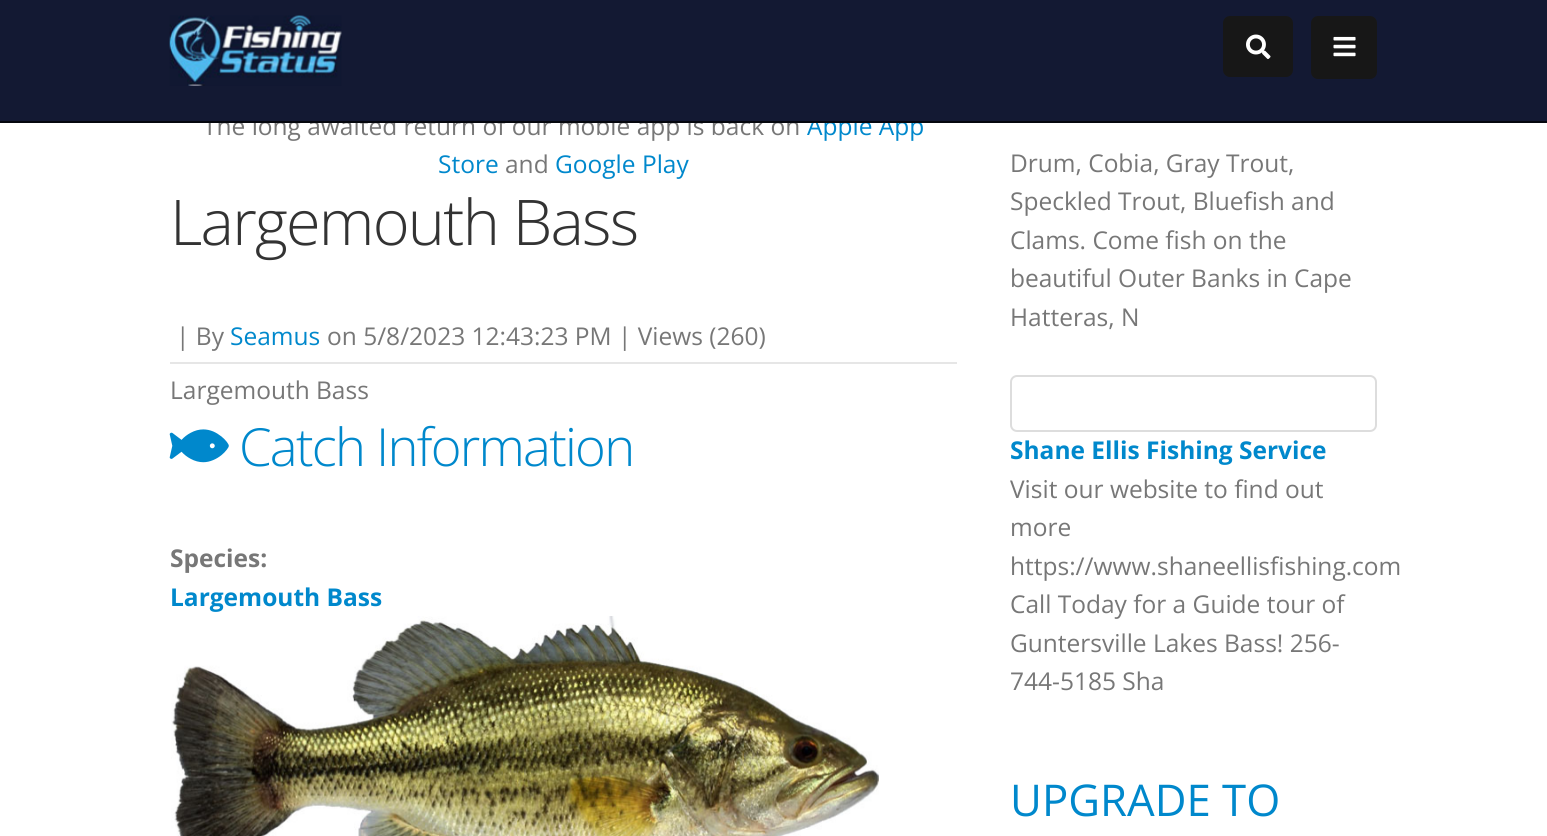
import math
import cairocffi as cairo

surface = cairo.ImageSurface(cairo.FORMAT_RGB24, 1547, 836)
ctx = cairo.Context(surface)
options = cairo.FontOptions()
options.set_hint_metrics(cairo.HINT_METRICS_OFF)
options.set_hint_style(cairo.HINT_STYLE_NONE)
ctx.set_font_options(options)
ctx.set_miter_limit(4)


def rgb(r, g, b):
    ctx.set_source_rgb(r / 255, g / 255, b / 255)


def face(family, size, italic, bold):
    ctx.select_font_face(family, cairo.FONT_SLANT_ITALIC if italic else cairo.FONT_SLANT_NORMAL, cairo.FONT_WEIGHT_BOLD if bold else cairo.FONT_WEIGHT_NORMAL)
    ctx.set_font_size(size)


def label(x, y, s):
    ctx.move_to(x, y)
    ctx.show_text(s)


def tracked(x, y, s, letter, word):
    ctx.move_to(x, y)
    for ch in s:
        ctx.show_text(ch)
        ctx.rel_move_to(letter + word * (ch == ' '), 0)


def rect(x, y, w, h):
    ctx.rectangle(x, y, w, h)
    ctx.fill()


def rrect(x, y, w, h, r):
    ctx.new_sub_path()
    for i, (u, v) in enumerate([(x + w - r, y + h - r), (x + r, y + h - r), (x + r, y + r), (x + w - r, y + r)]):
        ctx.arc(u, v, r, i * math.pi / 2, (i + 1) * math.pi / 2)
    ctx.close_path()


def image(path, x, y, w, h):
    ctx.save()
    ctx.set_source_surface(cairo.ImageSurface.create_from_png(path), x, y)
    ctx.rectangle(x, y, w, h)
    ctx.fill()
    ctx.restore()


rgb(255, 255, 255)
ctx.paint()
face('Open Sans', 24.5, 0, 0)
rgb(119, 119, 119)
label(203, 135, 'The long awaited return of our mobie app is back on')
rgb(0, 136, 204)
label(807, 135, 'Apple App')
rgb(19, 25, 51)
rect(0, 0, 1547, 121)
rgb(5, 7, 14)
rect(0, 121, 1547, 2)
image('image0.png', 169, 15, 173, 71)
rgb(23, 23, 23)
rrect(1223, 16, 70, 61, 7)
ctx.fill()
image('image1.png', 1246, 34, 25, 25)
rrect(1311, 16, 66, 63, 7)
ctx.fill()
image('image2.png', 1333, 36, 23, 21)
rgb(0, 136, 204)
label(438, 173, 'Store')
rgb(119, 119, 119)
label(505, 173, 'and')
rgb(0, 136, 204)
label(555, 173, 'Google Play')
face('Open Sans Light', 63, 0, 0)
rgb(51, 51, 51)
tracked(170, 245, 'Largemouth Bass', -1.75, 0)
face('Open Sans', 24.5, 0, 0)
rgb(119, 119, 119)
label(176, 345, '| By')
rgb(0, 136, 204)
label(230, 345, 'Seamus')
rgb(119, 119, 119)
label(327, 345, 'on 5/8/2023 12:43:23 PM | Views (260)')
rgb(230, 230, 230)
rect(170, 362, 787, 2)
rgb(119, 119, 119)
label(170, 399, 'Largemouth Bass')
image('image3.png', 169, 429, 60, 34)
face('Open Sans Light', 52.5, 0, 0)
rgb(0, 136, 204)
tracked(239, 466, 'Catch Information', -1.75, 0)
face('Open Sans', 24.5, 0, 1)
rgb(119, 119, 119)
label(170, 567, 'Species:')
rgb(0, 136, 204)
label(170, 606, 'Largemouth Bass')
image('image4.png', 171, 616, 708, 220)
face('Open Sans', 24.5, 0, 0)
rgb(119, 119, 119)
label(1010, 172, 'Drum, Cobia, Gray Trout,')
label(1010, 210, 'Speckled Trout, Bluefish and')
label(1010, 249, 'Clams. Come fish on the')
label(1010, 287, 'beautiful Outer Banks in Cape')
label(1010, 326, 'Hatteras, N')
rrect(1011, 376, 365, 55, 6)
rgb(221, 221, 221)
ctx.stroke()
face('Open Sans', 24.5, 0, 1)
rgb(0, 136, 204)
label(1010, 459, 'Shane Ellis Fishing Service')
face('Open Sans', 24.5, 0, 0)
rgb(119, 119, 119)
label(1010, 498, 'Visit our website to find out')
label(1010, 536, 'more')
label(1010, 575, 'https://www.shaneellisfishing.com')
label(1010, 613, 'Call Today for a Guide tour of')
label(1010, 652, 'Guntersville Lakes Bass! 256-')
label(1010, 690, '744-5185 Sha')
face('Open Sans', 43.75, 0, 0)
rgb(0, 136, 204)
label(1010, 816, 'UPGRADE TO')
surface.write_to_png('render.png')
